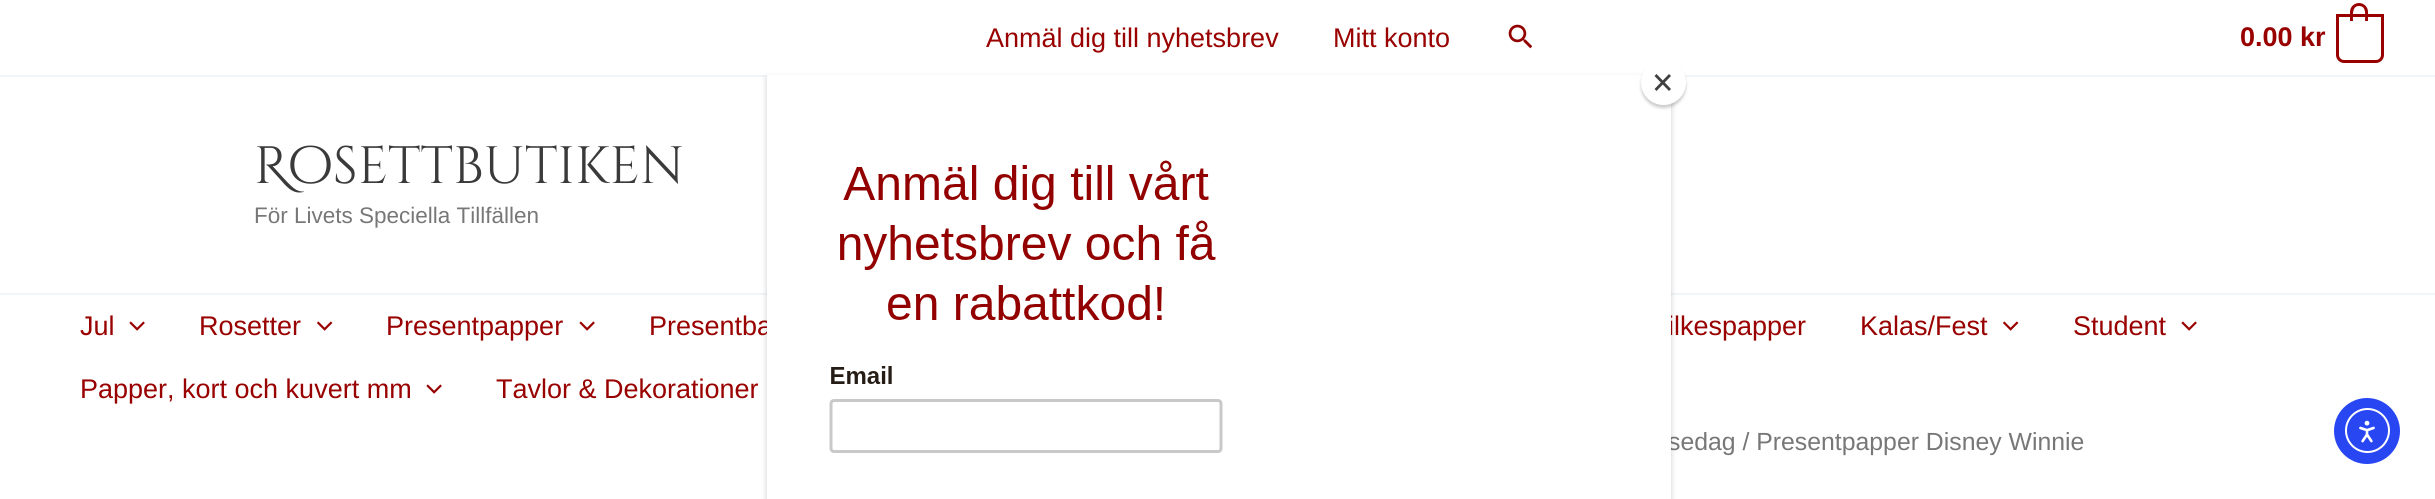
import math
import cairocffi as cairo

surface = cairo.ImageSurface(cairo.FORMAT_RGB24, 2435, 499)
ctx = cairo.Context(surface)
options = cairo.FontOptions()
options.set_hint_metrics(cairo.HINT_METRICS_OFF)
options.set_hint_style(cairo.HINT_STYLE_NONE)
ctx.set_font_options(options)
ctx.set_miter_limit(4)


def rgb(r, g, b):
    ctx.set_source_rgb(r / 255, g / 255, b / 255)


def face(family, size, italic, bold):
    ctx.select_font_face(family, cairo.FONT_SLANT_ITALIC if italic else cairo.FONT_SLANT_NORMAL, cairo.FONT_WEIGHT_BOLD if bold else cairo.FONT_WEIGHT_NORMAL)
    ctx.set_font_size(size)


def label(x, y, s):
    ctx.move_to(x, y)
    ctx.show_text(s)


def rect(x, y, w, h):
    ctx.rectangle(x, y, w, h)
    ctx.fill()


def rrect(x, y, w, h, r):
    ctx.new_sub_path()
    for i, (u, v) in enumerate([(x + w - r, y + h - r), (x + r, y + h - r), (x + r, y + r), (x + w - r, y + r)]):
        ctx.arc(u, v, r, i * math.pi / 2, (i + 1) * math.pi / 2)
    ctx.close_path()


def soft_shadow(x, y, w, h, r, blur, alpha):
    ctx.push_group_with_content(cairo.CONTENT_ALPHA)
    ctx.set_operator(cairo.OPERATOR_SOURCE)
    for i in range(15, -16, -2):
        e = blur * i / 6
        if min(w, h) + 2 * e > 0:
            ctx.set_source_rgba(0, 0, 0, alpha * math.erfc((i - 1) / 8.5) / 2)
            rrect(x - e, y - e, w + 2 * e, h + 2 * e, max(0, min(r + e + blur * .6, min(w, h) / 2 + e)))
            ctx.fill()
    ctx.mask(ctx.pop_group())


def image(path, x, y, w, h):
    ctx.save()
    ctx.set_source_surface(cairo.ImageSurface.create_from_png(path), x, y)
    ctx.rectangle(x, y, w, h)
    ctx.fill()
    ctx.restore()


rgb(255, 255, 255)
ctx.paint()
rgb(242, 245, 247)
rect(0, 75, 2435, 2)
face('Liberation Sans', 27, 0, 0)
rgb(153, 0, 0)
label(986, 47, 'Anmäl dig till nyhetsbrev')
label(1333, 47, 'Mitt konto')
image('image0.png', 1508, 24, 24, 25)
face('Liberation Sans', 27, 0, 1)
label(2240, 46, '0.00 kr')
ctx.new_path()
ctx.move_to(2337.5, 15.5)
ctx.line_to(2382.5, 15.5)
ctx.line_to(2382.5, 55)
ctx.curve_to(2382.5, 58.5, 2379.5, 61.5, 2376, 61.5)
ctx.line_to(2344, 61.5)
ctx.curve_to(2340.5, 61.5, 2337.5, 58.5, 2337.5, 55)
ctx.close_path()
ctx.set_line_width(3)
ctx.stroke()
ctx.set_fill_rule(cairo.FILL_RULE_EVEN_ODD)
ctx.new_path()
ctx.move_to(2359, 3)
ctx.curve_to(2364, 3, 2368, 7, 2368, 12)
ctx.line_to(2368, 21)
ctx.line_to(2350, 21)
ctx.line_to(2350, 12)
ctx.curve_to(2350, 7, 2354, 3, 2359, 3)
ctx.close_path()
ctx.move_to(2359, 6)
ctx.curve_to(2367, 6, 2365, 16, 2365, 21)
ctx.line_to(2353, 21)
ctx.curve_to(2353, 16, 2351.5, 6, 2359, 6)
ctx.close_path()
ctx.fill()
rgb(242, 245, 247)
rect(0, 293, 2435, 2)
face('Cinzel Decorative', 52.5, 0, 0)
rgb(58, 58, 58)
label(254, 183, 'Rosettbutiken')
face('Liberation Sans', 22.5, 0, 0)
rgb(119, 119, 119)
label(254, 223, 'För Livets Speciella Tillfällen')
face('Liberation Sans', 27, 0, 0)
rgb(153, 0, 0)
label(80, 335, 'Jul')
image('image1.png', 129, 321, 16, 10)
label(199, 335, 'Rosetter')
image('image2.png', 317, 321, 16, 10)
label(386, 335, 'Presentpapper')
image('image1.png', 579, 321, 16, 10)
label(649, 335, 'Presentba')
label(1668, 335, 'ilkespapper')
label(1860, 335, 'Kalas/Fest')
image('image2.png', 2003, 321, 16, 10)
label(2073, 335, 'Student')
image('image1.png', 2181, 321, 16, 10)
label(80, 398, 'Papper, kort och kuvert mm')
image('image1.png', 426, 384, 16, 10)
label(496, 398, 'Tavlor & Dekorationer')
face('Liberation Sans', 24.8, 0, 0)
rgb(119, 119, 119)
label(1668, 450, 'sedag / Presentpapper Disney Winnie')
ctx.save()
ctx.new_path()
ctx.move_to(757, 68)
ctx.line_to(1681, 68)
ctx.line_to(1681, 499)
ctx.line_to(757, 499)
ctx.close_path()
ctx.move_to(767, 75)
ctx.line_to(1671, 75)
ctx.line_to(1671, 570)
ctx.line_to(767, 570)
ctx.close_path()
ctx.clip()
rgb(0, 0, 0)
soft_shadow(767, 78, 904, 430, 0, 3, 0.2)
ctx.restore()
image('image3.png', 767, 75, 904, 422)
rgb(0, 0, 0)
soft_shadow(1641, 63, 45, 45, 22.5, 1.5, 0.2)
rgb(255, 255, 255)
ctx.arc(1663.5, 82.5, 22.5, 0, 2 * math.pi)
ctx.fill()
rgb(65, 65, 65)
ctx.set_fill_rule(cairo.FILL_RULE_WINDING)
ctx.new_path()
ctx.move_to(1669, 74)
ctx.line_to(1671, 76)
ctx.line_to(1656.5, 91)
ctx.line_to(1654.5, 89)
ctx.close_path()
ctx.fill()
ctx.new_path()
ctx.move_to(1654.5, 76)
ctx.line_to(1656.5, 74)
ctx.line_to(1671, 89)
ctx.line_to(1669, 91)
ctx.close_path()
ctx.fill()
rgb(40, 71, 243)
ctx.arc(2367, 431, 33, 0, 2 * math.pi)
ctx.fill()
ctx.arc(2367.5, 430.5, 21.5, 0, 2 * math.pi)
rgb(255, 255, 255)
ctx.set_line_width(2)
ctx.stroke()
image('image4.png', 2359, 420, 16, 23)
surface.write_to_png('render.png')
